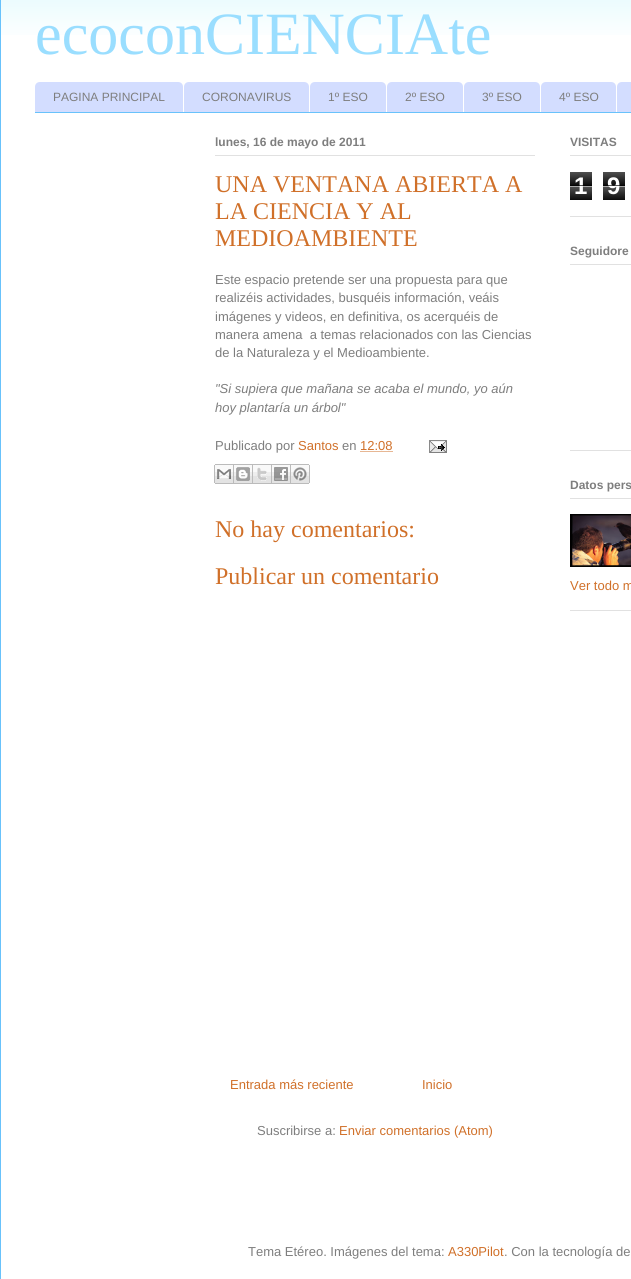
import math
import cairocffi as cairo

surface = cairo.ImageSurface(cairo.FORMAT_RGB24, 631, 1279)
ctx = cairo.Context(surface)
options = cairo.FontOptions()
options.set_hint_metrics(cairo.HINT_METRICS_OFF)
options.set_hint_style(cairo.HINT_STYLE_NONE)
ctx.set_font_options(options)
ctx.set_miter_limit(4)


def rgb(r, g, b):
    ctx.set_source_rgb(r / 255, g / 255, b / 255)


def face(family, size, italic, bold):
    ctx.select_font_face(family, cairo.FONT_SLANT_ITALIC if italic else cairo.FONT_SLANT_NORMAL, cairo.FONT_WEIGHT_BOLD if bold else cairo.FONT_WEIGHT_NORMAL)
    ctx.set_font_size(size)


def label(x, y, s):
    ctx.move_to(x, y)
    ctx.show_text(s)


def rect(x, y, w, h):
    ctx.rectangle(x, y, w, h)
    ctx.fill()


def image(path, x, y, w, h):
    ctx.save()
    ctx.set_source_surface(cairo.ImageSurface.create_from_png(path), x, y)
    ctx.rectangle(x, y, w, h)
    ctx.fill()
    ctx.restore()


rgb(255, 255, 255)
ctx.paint()
image('image0.png', 1, 0, 630, 35)
rgb(104, 194, 251)
rect(0, 0, 1, 1279)
face('Liberation Serif', 60, 0, 0)
rgb(154, 222, 255)
label(35, 54, 'ecoconCIENCIAte')
rgb(104, 194, 251)
rect(35, 112, 596, 1)
rgb(211, 221, 255)
ctx.new_path()
ctx.move_to(40, 82)
ctx.line_to(178, 82)
ctx.curve_to(181, 82, 183, 84, 183, 87)
ctx.line_to(183, 112)
ctx.line_to(35, 112)
ctx.line_to(35, 87)
ctx.curve_to(35, 84, 37, 82, 40, 82)
ctx.close_path()
ctx.fill()
face('Liberation Sans', 12, 0, 0)
rgb(126, 126, 126)
label(53, 101, 'PAGINA PRINCIPAL')
rgb(211, 221, 255)
ctx.new_path()
ctx.move_to(189, 82)
ctx.line_to(304, 82)
ctx.curve_to(307, 82, 309, 84, 309, 87)
ctx.line_to(309, 112)
ctx.line_to(184, 112)
ctx.line_to(184, 87)
ctx.curve_to(184, 84, 186, 82, 189, 82)
ctx.close_path()
ctx.fill()
rgb(126, 126, 126)
label(202, 101, 'CORONAVIRUS')
rgb(211, 221, 255)
ctx.new_path()
ctx.move_to(315, 82)
ctx.line_to(381, 82)
ctx.curve_to(384, 82, 386, 84, 386, 87)
ctx.line_to(386, 112)
ctx.line_to(310, 112)
ctx.line_to(310, 87)
ctx.curve_to(310, 84, 312, 82, 315, 82)
ctx.close_path()
ctx.fill()
rgb(126, 126, 126)
label(328, 101, '1º ESO')
rgb(211, 221, 255)
ctx.new_path()
ctx.move_to(392, 82)
ctx.line_to(458, 82)
ctx.curve_to(461, 82, 463, 84, 463, 87)
ctx.line_to(463, 112)
ctx.line_to(387, 112)
ctx.line_to(387, 87)
ctx.curve_to(387, 84, 389, 82, 392, 82)
ctx.close_path()
ctx.fill()
rgb(126, 126, 126)
label(405, 101, '2º ESO')
rgb(211, 221, 255)
ctx.new_path()
ctx.move_to(469, 82)
ctx.line_to(535, 82)
ctx.curve_to(538, 82, 540, 84, 540, 87)
ctx.line_to(540, 112)
ctx.line_to(464, 112)
ctx.line_to(464, 87)
ctx.curve_to(464, 84, 466, 82, 469, 82)
ctx.close_path()
ctx.fill()
rgb(126, 126, 126)
label(482, 101, '3º ESO')
rgb(211, 221, 255)
ctx.new_path()
ctx.move_to(546, 82)
ctx.line_to(611, 82)
ctx.curve_to(614, 82, 616, 84, 616, 87)
ctx.line_to(616, 112)
ctx.line_to(541, 112)
ctx.line_to(541, 87)
ctx.curve_to(541, 84, 543, 82, 546, 82)
ctx.close_path()
ctx.fill()
rgb(126, 126, 126)
label(559, 101, '4º ESO')
rgb(211, 221, 255)
ctx.new_path()
ctx.move_to(622, 82)
ctx.line_to(631, 82)
ctx.curve_to(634, 82, 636, 84, 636, 87)
ctx.line_to(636, 112)
ctx.line_to(617, 112)
ctx.line_to(617, 87)
ctx.curve_to(617, 84, 619, 82, 622, 82)
ctx.close_path()
ctx.fill()
rgb(225, 225, 225)
rect(215, 155, 320, 1)
face('Liberation Sans', 12, 0, 1)
rgb(126, 126, 126)
label(215, 146, 'lunes, 16 de mayo de 2011')
face('Liberation Serif', 24, 0, 0)
rgb(208, 112, 41)
label(215, 192, 'UNA VENTANA ABIERTA A')
label(215, 219, 'LA CIENCIA Y AL')
label(215, 246, 'MEDIOAMBIENTE')
face('Liberation Sans', 13, 0, 0)
rgb(126, 126, 126)
label(215, 284, 'Este espacio pretende ser una propuesta para que')
label(215, 302, 'realizéis actividades, busquéis información, veáis')
label(215, 321, 'imágenes y videos, en definitiva, os acerquéis de')
label(215, 339, 'manera amena  a temas relacionados con las Ciencias')
label(215, 357, 'de la Naturaleza y el Medioambiente.')
face('Liberation Sans', 13, 1, 0)
label(215, 393, '"Si supiera que mañana se acaba el mundo, yo aún')
label(215, 412, 'hoy plantaría un árbol"')
face('Liberation Sans', 13, 0, 0)
label(215, 450, 'Publicado por')
rgb(208, 112, 41)
label(298, 450, 'Santos')
rgb(126, 126, 126)
label(342, 450, 'en')
rgb(208, 112, 41)
label(360, 450, '12:08')
ctx.new_path()
ctx.move_to(360.5, 451.5)
ctx.line_to(393, 451.5)
ctx.set_line_width(1)
ctx.set_dash([1, 1])
ctx.stroke()
image('image1.png', 429, 440, 18, 13)
image('image2.png', 214, 464, 20, 20)
image('image3.png', 234, 464, 19, 20)
image('image4.png', 253, 464, 19, 20)
image('image5.png', 272, 464, 19, 20)
image('image6.png', 291, 464, 19, 20)
face('Liberation Serif', 24, 0, 0)
label(215, 537, 'No hay comentarios:')
label(215, 584, 'Publicar un comentario')
face('Liberation Sans', 13, 0, 0)
label(230, 1089, 'Entrada más reciente')
label(422, 1089, 'Inicio')
rgb(126, 126, 126)
label(257, 1135, 'Suscribirse a:')
rgb(208, 112, 41)
label(339, 1135, 'Enviar comentarios (Atom)')
rgb(225, 225, 225)
rect(570, 216, 61, 1)
rect(570, 155, 61, 1)
face('Liberation Sans', 12, 0, 1)
rgb(126, 126, 126)
label(570, 146, 'VISITAS')
image('image7.png', 570, 172, 22, 28)
face('Liberation Sans', 24, 0, 1)
rgb(255, 255, 255)
label(574, 194, '1')
ctx.set_source_rgba(0, 0, 0, 0.65)
rect(570, 185, 22, 1)
ctx.set_source_rgba(1, 1, 1, 0.65)
rect(570, 186, 22, 1)
image('image7.png', 603, 172, 22, 28)
rgb(255, 255, 255)
label(607, 194, '9')
ctx.set_source_rgba(0, 0, 0, 0.65)
rect(603, 185, 22, 1)
ctx.set_source_rgba(1, 1, 1, 0.65)
rect(603, 186, 22, 1)
rgb(225, 225, 225)
rect(570, 450, 61, 1)
rect(570, 264, 61, 1)
face('Liberation Sans', 12, 0, 1)
rgb(126, 126, 126)
label(570, 255, 'Seguidore')
rgb(225, 225, 225)
rect(570, 610, 61, 1)
rect(570, 498, 61, 1)
rgb(126, 126, 126)
label(570, 489, 'Datos pers')
image('image8.png', 570, 514, 61, 53)
face('Liberation Sans', 13, 0, 0)
rgb(208, 112, 41)
label(570, 590, 'Ver todo m')
rgb(126, 126, 126)
label(248, 1256, 'Tema Etéreo. Imágenes del tema:')
rgb(208, 112, 41)
label(448, 1256, 'A330Pilot')
rgb(126, 126, 126)
label(504, 1256, '. Con la tecnología de')
surface.write_to_png('render.png')
